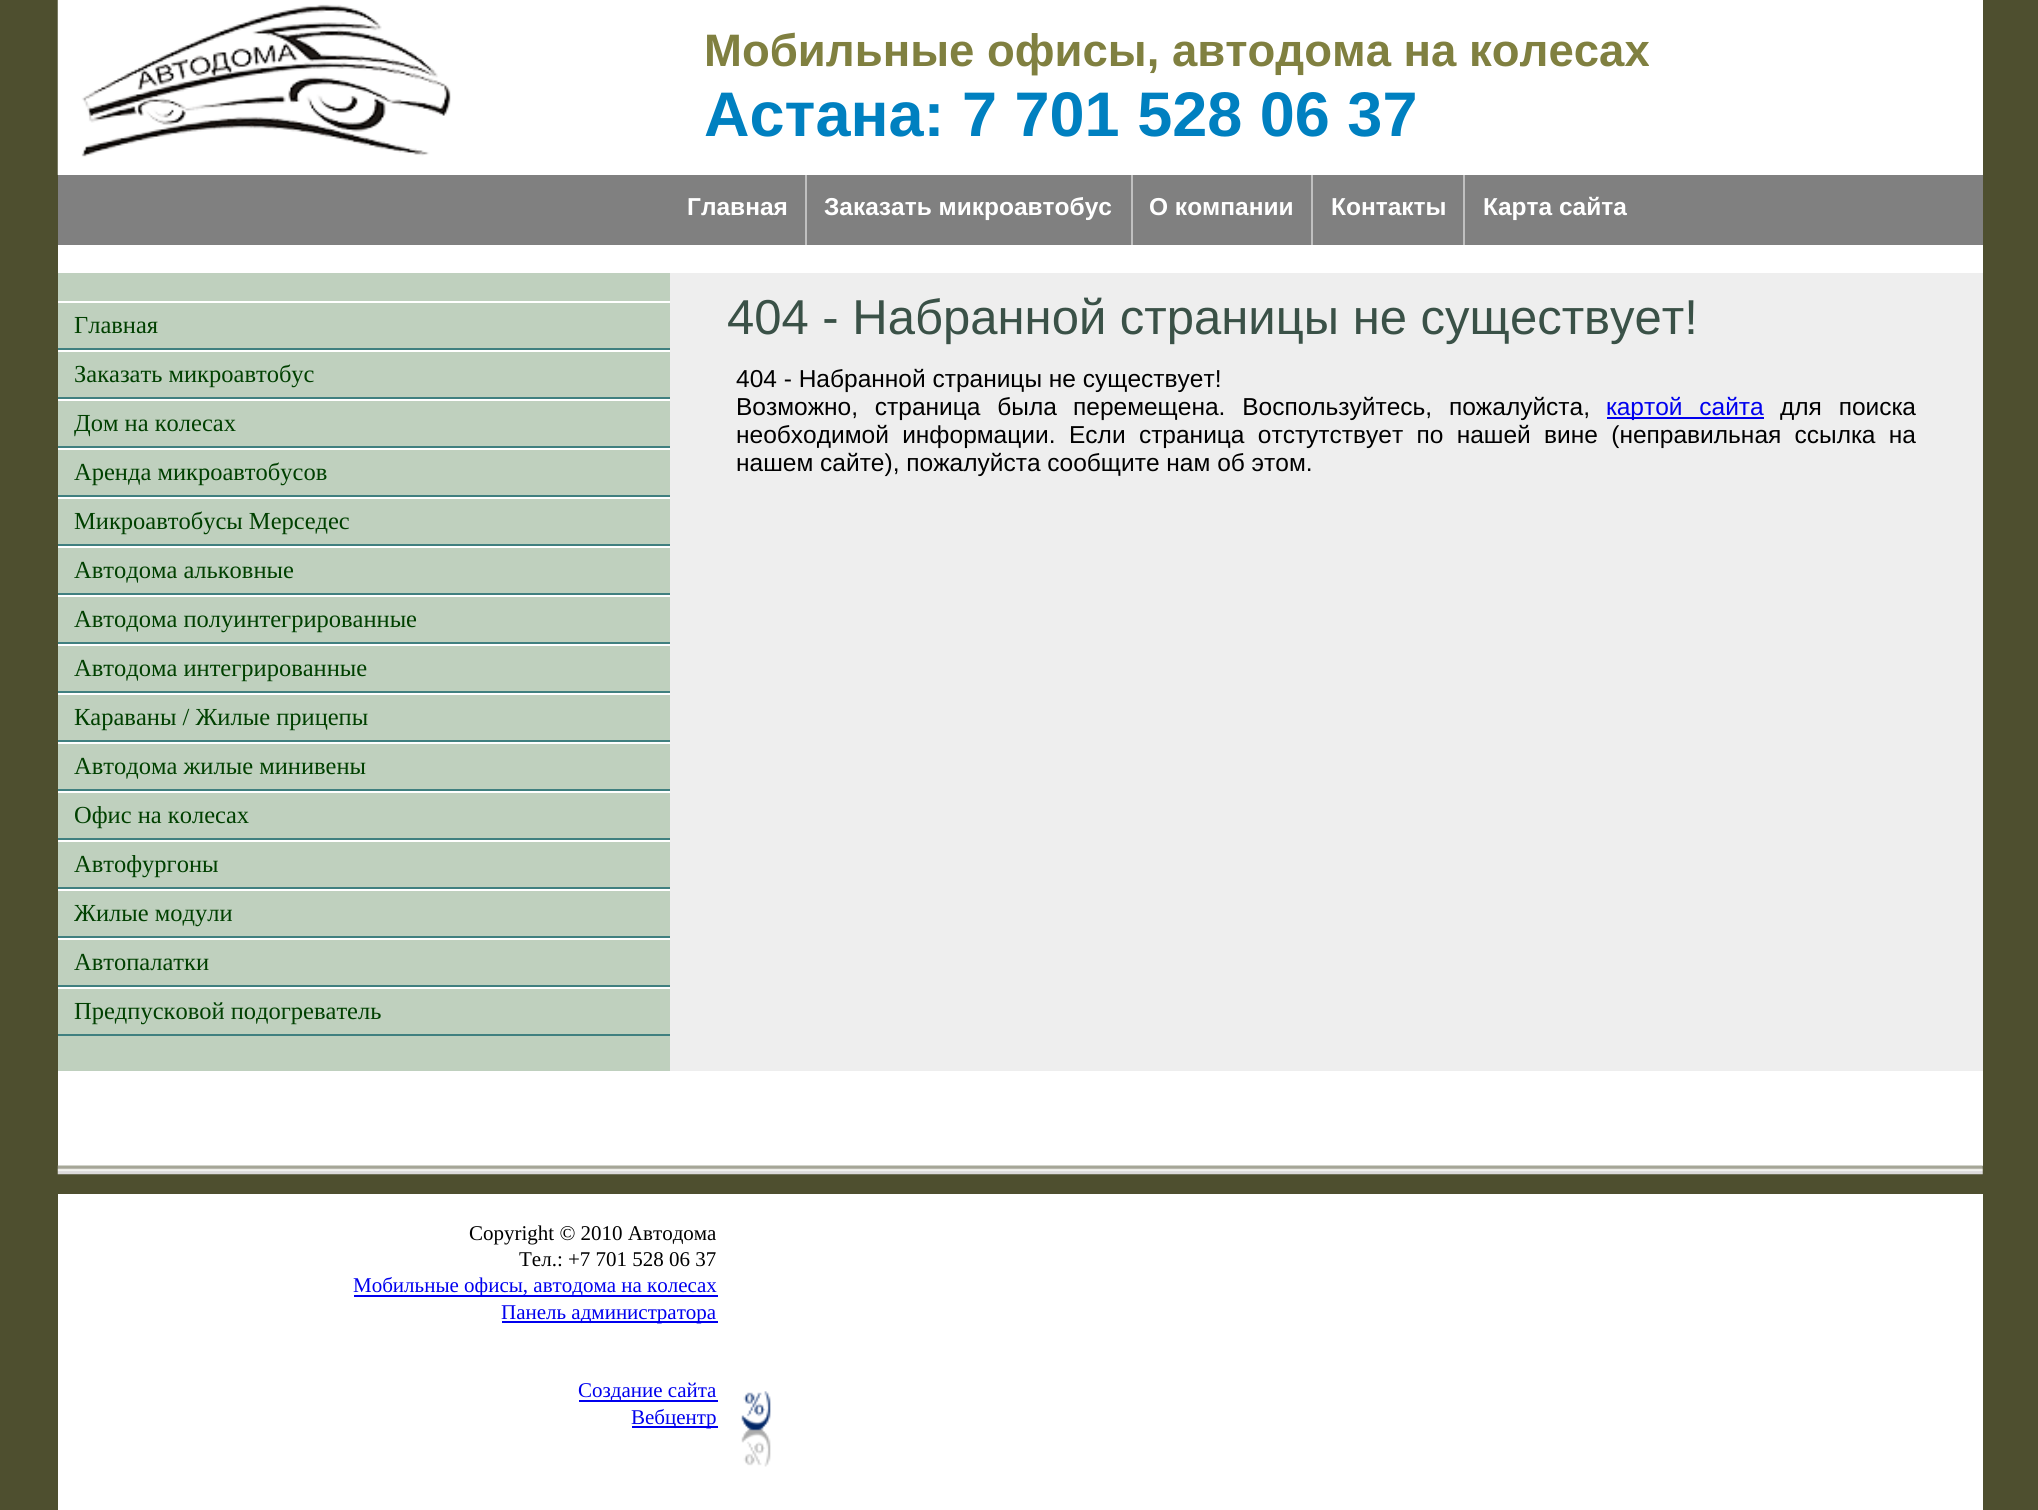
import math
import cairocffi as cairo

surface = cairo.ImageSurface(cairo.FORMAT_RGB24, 2038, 1510)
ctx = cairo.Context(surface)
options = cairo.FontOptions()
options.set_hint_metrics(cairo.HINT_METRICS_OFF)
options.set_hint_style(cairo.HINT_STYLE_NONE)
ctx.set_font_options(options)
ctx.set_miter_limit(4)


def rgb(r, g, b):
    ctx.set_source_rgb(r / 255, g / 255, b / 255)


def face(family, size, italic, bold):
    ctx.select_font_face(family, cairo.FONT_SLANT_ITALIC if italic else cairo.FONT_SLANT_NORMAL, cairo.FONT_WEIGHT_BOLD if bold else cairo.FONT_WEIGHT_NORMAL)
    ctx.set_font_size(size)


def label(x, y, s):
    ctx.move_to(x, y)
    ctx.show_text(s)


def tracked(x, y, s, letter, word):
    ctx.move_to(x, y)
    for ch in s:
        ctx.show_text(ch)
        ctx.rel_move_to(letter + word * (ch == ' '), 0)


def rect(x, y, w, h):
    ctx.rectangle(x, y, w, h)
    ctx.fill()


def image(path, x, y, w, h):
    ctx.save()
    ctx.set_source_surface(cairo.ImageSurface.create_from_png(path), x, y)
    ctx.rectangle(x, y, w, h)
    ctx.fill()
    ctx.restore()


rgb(78, 79, 47)
ctx.paint()
rgb(255, 255, 255)
rect(451, 0, 1532, 175)
image('image0.png', 57, 0, 394, 175)
face('Liberation Sans', 45.5, 0, 1)
rgb(128, 128, 64)
label(704, 66, 'Мобильные офисы, автодома на колесах')
face('Liberation Sans', 63, 0, 1)
rgb(0, 128, 192)
label(704, 136, 'Астана: 7 701 528 06 37')
rgb(128, 128, 128)
rect(58, 175, 1925, 70)
face('Liberation Sans', 24.5, 0, 1)
rgb(255, 255, 255)
label(687, 215, 'Главная')
rgb(192, 192, 192)
rect(805, 175, 2, 70)
rgb(255, 255, 255)
label(824, 215, 'Заказать микроавтобус')
rgb(192, 192, 192)
rect(1131, 175, 2, 70)
rgb(255, 255, 255)
label(1149, 215, 'О компании')
rgb(192, 192, 192)
rect(1311, 175, 2, 70)
rgb(255, 255, 255)
label(1331, 215, 'Контакты')
rgb(192, 192, 192)
rect(1463, 175, 2, 70)
rgb(255, 255, 255)
label(1483, 215, 'Карта сайта')
rect(58, 245, 1925, 921)
rgb(191, 208, 190)
rect(58, 273, 612, 798)
rgb(255, 255, 255)
rect(58, 301, 612, 2)
rgb(64, 128, 128)
rect(58, 348, 612, 2)
face('Liberation Serif', 24.5, 0, 0)
rgb(0, 64, 0)
label(74, 333, 'Главная')
rgb(255, 255, 255)
rect(58, 350, 612, 2)
rgb(64, 128, 128)
rect(58, 397, 612, 2)
rgb(0, 64, 0)
label(74, 382, 'Заказать микроавтобус')
rgb(255, 255, 255)
rect(58, 399, 612, 2)
rgb(64, 128, 128)
rect(58, 446, 612, 2)
rgb(0, 64, 0)
label(74, 431, 'Дом на колесах')
rgb(255, 255, 255)
rect(58, 448, 612, 2)
rgb(64, 128, 128)
rect(58, 495, 612, 2)
rgb(0, 64, 0)
label(74, 480, 'Аренда микроавтобусов')
rgb(255, 255, 255)
rect(58, 497, 612, 2)
rgb(64, 128, 128)
rect(58, 544, 612, 2)
rgb(0, 64, 0)
label(74, 529, 'Микроавтобусы Мерседес')
rgb(255, 255, 255)
rect(58, 546, 612, 2)
rgb(64, 128, 128)
rect(58, 593, 612, 2)
rgb(0, 64, 0)
label(74, 578, 'Автодома альковные')
rgb(255, 255, 255)
rect(58, 595, 612, 2)
rgb(64, 128, 128)
rect(58, 642, 612, 2)
rgb(0, 64, 0)
label(74, 627, 'Автодома полуинтегрированные')
rgb(255, 255, 255)
rect(58, 644, 612, 2)
rgb(64, 128, 128)
rect(58, 691, 612, 2)
rgb(0, 64, 0)
label(74, 676, 'Автодома интегрированные')
rgb(255, 255, 255)
rect(58, 693, 612, 2)
rgb(64, 128, 128)
rect(58, 740, 612, 2)
rgb(0, 64, 0)
label(74, 725, 'Караваны / Жилые прицепы')
rgb(255, 255, 255)
rect(58, 742, 612, 2)
rgb(64, 128, 128)
rect(58, 789, 612, 2)
rgb(0, 64, 0)
label(74, 774, 'Автодома жилые минивены')
rgb(255, 255, 255)
rect(58, 791, 612, 2)
rgb(64, 128, 128)
rect(58, 838, 612, 2)
rgb(0, 64, 0)
label(74, 823, 'Офис на колесах')
rgb(255, 255, 255)
rect(58, 840, 612, 2)
rgb(64, 128, 128)
rect(58, 887, 612, 2)
rgb(0, 64, 0)
label(74, 872, 'Автофургоны')
rgb(255, 255, 255)
rect(58, 889, 612, 2)
rgb(64, 128, 128)
rect(58, 936, 612, 2)
rgb(0, 64, 0)
label(74, 921, 'Жилые модули')
rgb(255, 255, 255)
rect(58, 938, 612, 2)
rgb(64, 128, 128)
rect(58, 985, 612, 2)
rgb(0, 64, 0)
label(74, 970, 'Автопалатки')
rgb(255, 255, 255)
rect(58, 987, 612, 2)
rgb(64, 128, 128)
rect(58, 1034, 612, 2)
rgb(0, 64, 0)
label(74, 1019, 'Предпусковой подогреватель')
rgb(238, 238, 238)
rect(670, 273, 1313, 798)
face('Liberation Sans', 49, 0, 0)
rgb(58, 81, 71)
label(727, 334, '404 - Набранной страницы не существует!')
face('Liberation Sans', 24.5, 0, 0)
rgb(0, 0, 0)
label(736, 387, '404 - Набранной страницы не существует!')
tracked(736, 415, 'Возможно, страница была', 0, 10)
tracked(1073, 415, 'перемещена. Воспользуйтесь, пожалуйста,', 0, 10)
rgb(0, 0, 238)
rect(1607, 417, 157, 2)
tracked(1606, 415, 'картой сайта', 0, 10)
rgb(0, 0, 0)
tracked(1780, 415, 'для поиска', 0, 10)
tracked(736, 443, 'необходимой информации.', 0, 6.5)
tracked(1069, 443, 'Если страница отстутствует по нашей вине (неправильная ссылка на', 0, 6.5)
label(736, 471, 'нашем сайте), пожалуйста сообщите нам об этом.')
image('image1.png', 57, 1165, 1926, 10)
rgb(255, 255, 255)
rect(58, 1194, 1925, 316)
face('Liberation Serif', 21, 0, 0)
rgb(0, 0, 0)
label(469, 1240, 'Copyright © 2010 Автодома')
label(519, 1266, 'Тел.: +7 701 528 06 37')
rgb(0, 0, 238)
rect(354, 1295, 364, 2)
label(353, 1292, 'Мобильные офисы, автодома на колесах')
rect(502, 1321, 216, 2)
label(501, 1319, 'Панель администратора')
rect(579, 1400, 139, 2)
label(578, 1397, 'Создание сайта')
rect(632, 1426, 86, 2)
label(631, 1424, 'Вебцентр')
image('image2.png', 741, 1391, 30, 76)
surface.write_to_png('render.png')
